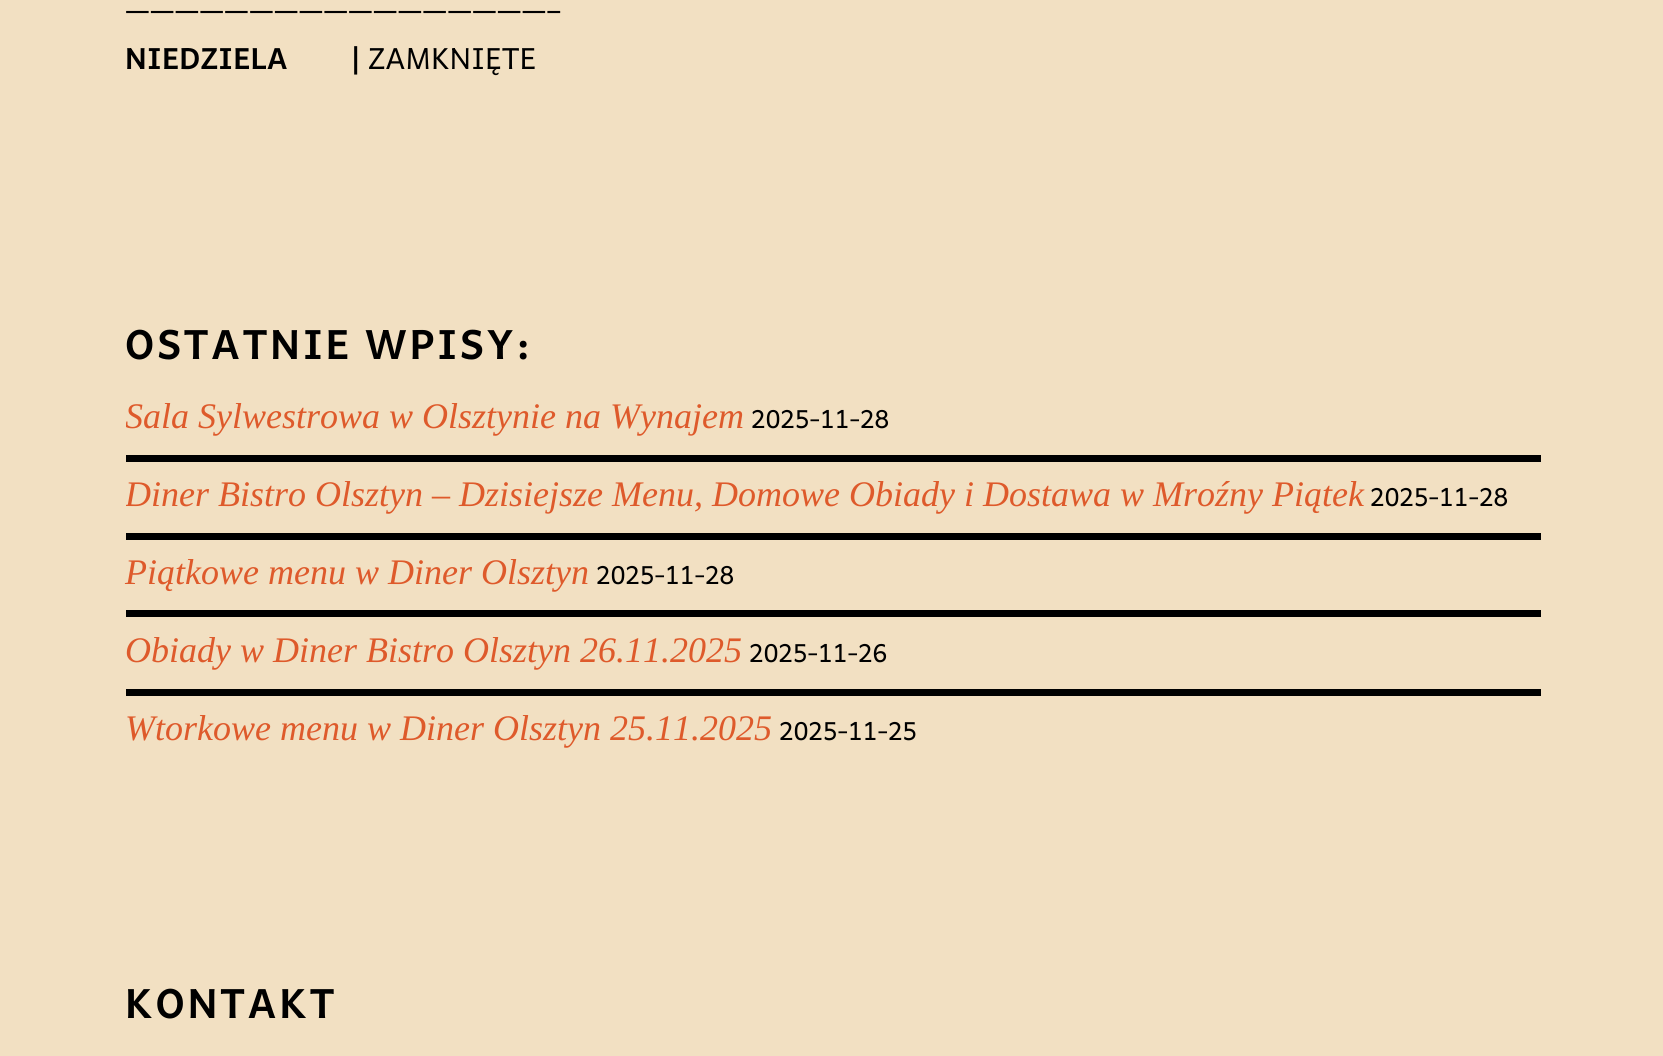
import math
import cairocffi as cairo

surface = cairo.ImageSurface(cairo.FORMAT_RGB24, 1663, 1056)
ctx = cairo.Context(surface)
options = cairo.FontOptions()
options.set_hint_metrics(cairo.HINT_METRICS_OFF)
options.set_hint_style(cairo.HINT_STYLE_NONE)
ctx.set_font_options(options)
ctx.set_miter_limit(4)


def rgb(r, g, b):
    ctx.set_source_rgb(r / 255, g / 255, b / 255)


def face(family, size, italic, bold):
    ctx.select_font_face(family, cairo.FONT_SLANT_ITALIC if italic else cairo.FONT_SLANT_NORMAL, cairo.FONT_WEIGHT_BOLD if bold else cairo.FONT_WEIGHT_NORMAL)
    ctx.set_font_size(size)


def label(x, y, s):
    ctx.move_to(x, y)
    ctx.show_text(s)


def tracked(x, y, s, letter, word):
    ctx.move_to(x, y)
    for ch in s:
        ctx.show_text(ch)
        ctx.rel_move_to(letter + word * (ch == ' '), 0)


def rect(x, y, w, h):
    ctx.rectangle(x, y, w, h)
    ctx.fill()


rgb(242, 224, 194)
ctx.paint()
face('Andika', 29.25, 0, 0)
rgb(0, 0, 0)
label(125, 21, '—————————————————–')
face('Andika', 29.25, 0, 1)
label(125, 69, 'NIEDZIELA        |')
face('Andika', 29.25, 0, 0)
label(368, 69, 'ZAMKNIĘTE')
face('Andika', 40.5, 0, 1)
tracked(125, 359, 'OSTATNIE WPISY:', 2.25, 0)
ctx.save()
ctx.rectangle(126, 286, 1415, 479)
ctx.clip()
face('Liberation Serif', 36, 1, 0)
rgb(222, 90, 43)
label(125, 428, 'Sala Sylwestrowa w Olsztynie na Wynajem')
ctx.restore()
face('Andika', 25, 0, 0)
label(751, 428, '2025-11-28')
rect(126, 455, 1415, 7)
ctx.save()
ctx.rectangle(126, 286, 1415, 479)
ctx.clip()
face('Liberation Serif', 36, 1, 0)
rgb(222, 90, 43)
label(125, 506, 'Diner Bistro Olsztyn – Dzisiejsze Menu, Domowe Obiady i Dostawa w Mroźny Piątek')
ctx.restore()
label(1370, 506, '2025-11-28')
rect(126, 533, 1415, 7)
face('Liberation Serif', 36, 1, 0)
rgb(222, 90, 43)
label(125, 584, 'Piątkowe menu w Diner Olsztyn')
face('Andika', 25, 0, 0)
rgb(0, 0, 0)
label(596, 584, '2025-11-28')
rect(126, 610, 1415, 7)
face('Liberation Serif', 36, 1, 0)
rgb(222, 90, 43)
label(125, 662, 'Obiady w Diner Bistro Olsztyn 26.11.2025')
face('Andika', 25, 0, 0)
rgb(0, 0, 0)
label(749, 662, '2025-11-26')
rect(126, 689, 1415, 7)
face('Liberation Serif', 36, 1, 0)
rgb(222, 90, 43)
label(125, 740, 'Wtorkowe menu w Diner Olsztyn 25.11.2025')
face('Andika', 25, 0, 0)
rgb(0, 0, 0)
label(779, 740, '2025-11-25')
face('Andika', 40.5, 0, 1)
tracked(125, 1018, 'KONTAKT', 2.25, 0)
surface.write_to_png('render.png')
